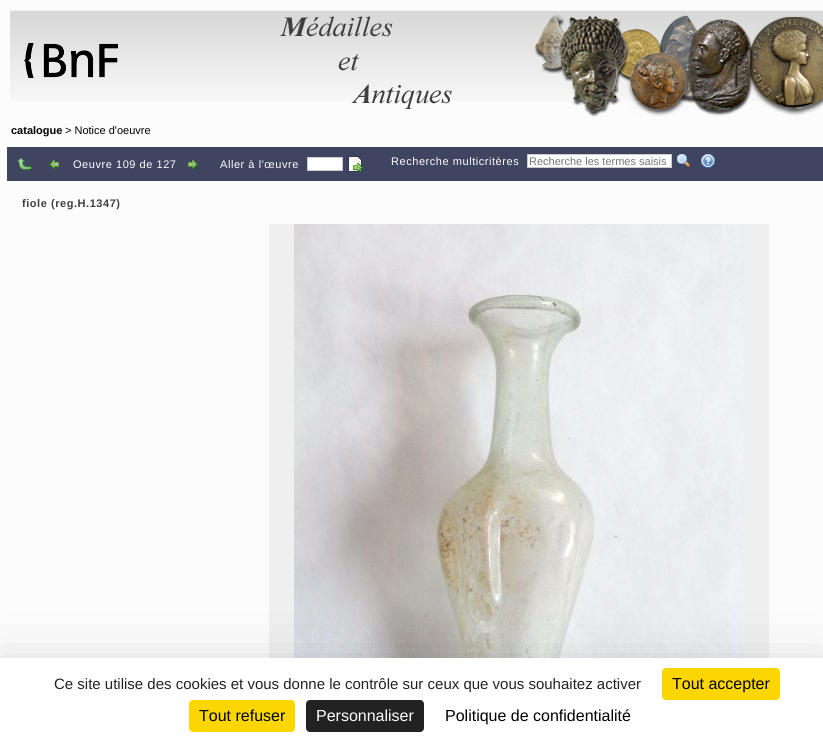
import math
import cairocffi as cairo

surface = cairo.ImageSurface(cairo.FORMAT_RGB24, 823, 742)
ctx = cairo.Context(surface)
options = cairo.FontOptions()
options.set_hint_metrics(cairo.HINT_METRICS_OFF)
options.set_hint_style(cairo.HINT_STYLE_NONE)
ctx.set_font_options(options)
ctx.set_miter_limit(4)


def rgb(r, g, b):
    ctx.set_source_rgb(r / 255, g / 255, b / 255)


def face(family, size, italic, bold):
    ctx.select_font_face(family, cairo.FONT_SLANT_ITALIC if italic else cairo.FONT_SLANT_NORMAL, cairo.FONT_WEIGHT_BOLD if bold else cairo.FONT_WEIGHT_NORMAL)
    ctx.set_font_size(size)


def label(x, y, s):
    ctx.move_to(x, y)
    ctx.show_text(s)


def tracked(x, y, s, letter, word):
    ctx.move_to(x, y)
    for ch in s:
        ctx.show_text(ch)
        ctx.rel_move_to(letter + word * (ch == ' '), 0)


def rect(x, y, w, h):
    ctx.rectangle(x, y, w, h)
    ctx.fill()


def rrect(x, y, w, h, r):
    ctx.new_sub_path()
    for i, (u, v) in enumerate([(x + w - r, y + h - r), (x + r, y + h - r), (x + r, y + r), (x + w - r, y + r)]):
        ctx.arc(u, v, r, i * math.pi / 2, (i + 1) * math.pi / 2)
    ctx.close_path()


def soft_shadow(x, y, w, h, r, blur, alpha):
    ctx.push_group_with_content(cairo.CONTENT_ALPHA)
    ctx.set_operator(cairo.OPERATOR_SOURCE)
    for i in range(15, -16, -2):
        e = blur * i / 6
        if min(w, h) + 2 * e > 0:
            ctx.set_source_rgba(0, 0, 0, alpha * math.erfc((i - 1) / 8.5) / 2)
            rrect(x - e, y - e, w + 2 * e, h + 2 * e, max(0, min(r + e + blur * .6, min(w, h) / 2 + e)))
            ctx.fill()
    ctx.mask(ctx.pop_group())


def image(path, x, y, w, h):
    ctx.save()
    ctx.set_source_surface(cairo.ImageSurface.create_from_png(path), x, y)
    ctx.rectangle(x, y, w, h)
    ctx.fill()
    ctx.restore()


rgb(252, 252, 252)
ctx.paint()
image('image0.png', 10, 10, 813, 91)
image('image1.png', 24, 16, 428, 93)
image('image2.png', 535, 15, 288, 102)
face('Liberation Sans', 11, 0, 1)
rgb(0, 0, 0)
label(11, 134, 'catalogue')
face('Liberation Sans', 11, 0, 0)
label(65, 134, '> Notice d\'oeuvre')
rgb(63, 68, 97)
rect(7, 147, 816, 34)
image('image3.png', 17, 158, 15, 12)
image('image4.png', 49, 160, 10, 9)
rgb(255, 255, 255)
tracked(73, 168, 'Oeuvre 109 de 127', 0.55, 0)
image('image5.png', 188, 160, 10, 9)
tracked(220, 168, 'Aller à l\'œuvre', 0.55, 0)
ctx.rectangle(307.5, 157.5, 35, 13)
ctx.fill_preserve()
rgb(204, 204, 204)
ctx.set_line_width(1)
ctx.stroke()
image('image6.png', 348, 156, 15, 16)
rgb(255, 255, 255)
tracked(391, 165, 'Recherche multicritères', 0.55, 0)
ctx.rectangle(527.5, 154.5, 144, 13)
ctx.fill_preserve()
rgb(204, 204, 204)
ctx.stroke()
rgb(117, 117, 117)
label(529, 165, 'Recherche les termes saisis')
image('image7.png', 677, 154, 13, 14)
image('image8.png', 701, 154, 14, 14)
face('Liberation Sans', 11, 0, 1)
rgb(63, 63, 63)
tracked(22, 207, 'fiole (reg.H.1347)', 0.55, 0)
rgb(239, 239, 239)
rect(269, 224, 500, 434)
image('image9.png', 294, 224, 450, 434)
rgb(0, 0, 0)
soft_shadow(0, 678, 823, 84, 0, 30, 0.25)
rgb(255, 255, 255)
rect(0, 658, 823, 84)
face('Liberation Sans', 15, 0, 0)
rgb(34, 34, 34)
label(54, 689, 'Ce site utilise des cookies et vous donne le contrôle sur ceux que vous souhaitez activer')
rgb(251, 214, 0)
rrect(662, 668, 118, 32, 4)
ctx.fill()
face('Liberation Sans', 16, 0, 0)
rgb(0, 0, 0)
label(672, 689, 'Tout accepter')
rgb(251, 214, 0)
rrect(189, 700, 106, 32, 4)
ctx.fill()
rgb(0, 0, 0)
label(199, 721, 'Tout refuser')
rgb(34, 34, 34)
rrect(306, 700, 118, 32, 4)
ctx.fill()
rgb(255, 255, 255)
label(316, 721, 'Personnaliser')
rgb(0, 0, 0)
label(445, 721, 'Politique de confidentialité')
surface.write_to_png('render.png')
